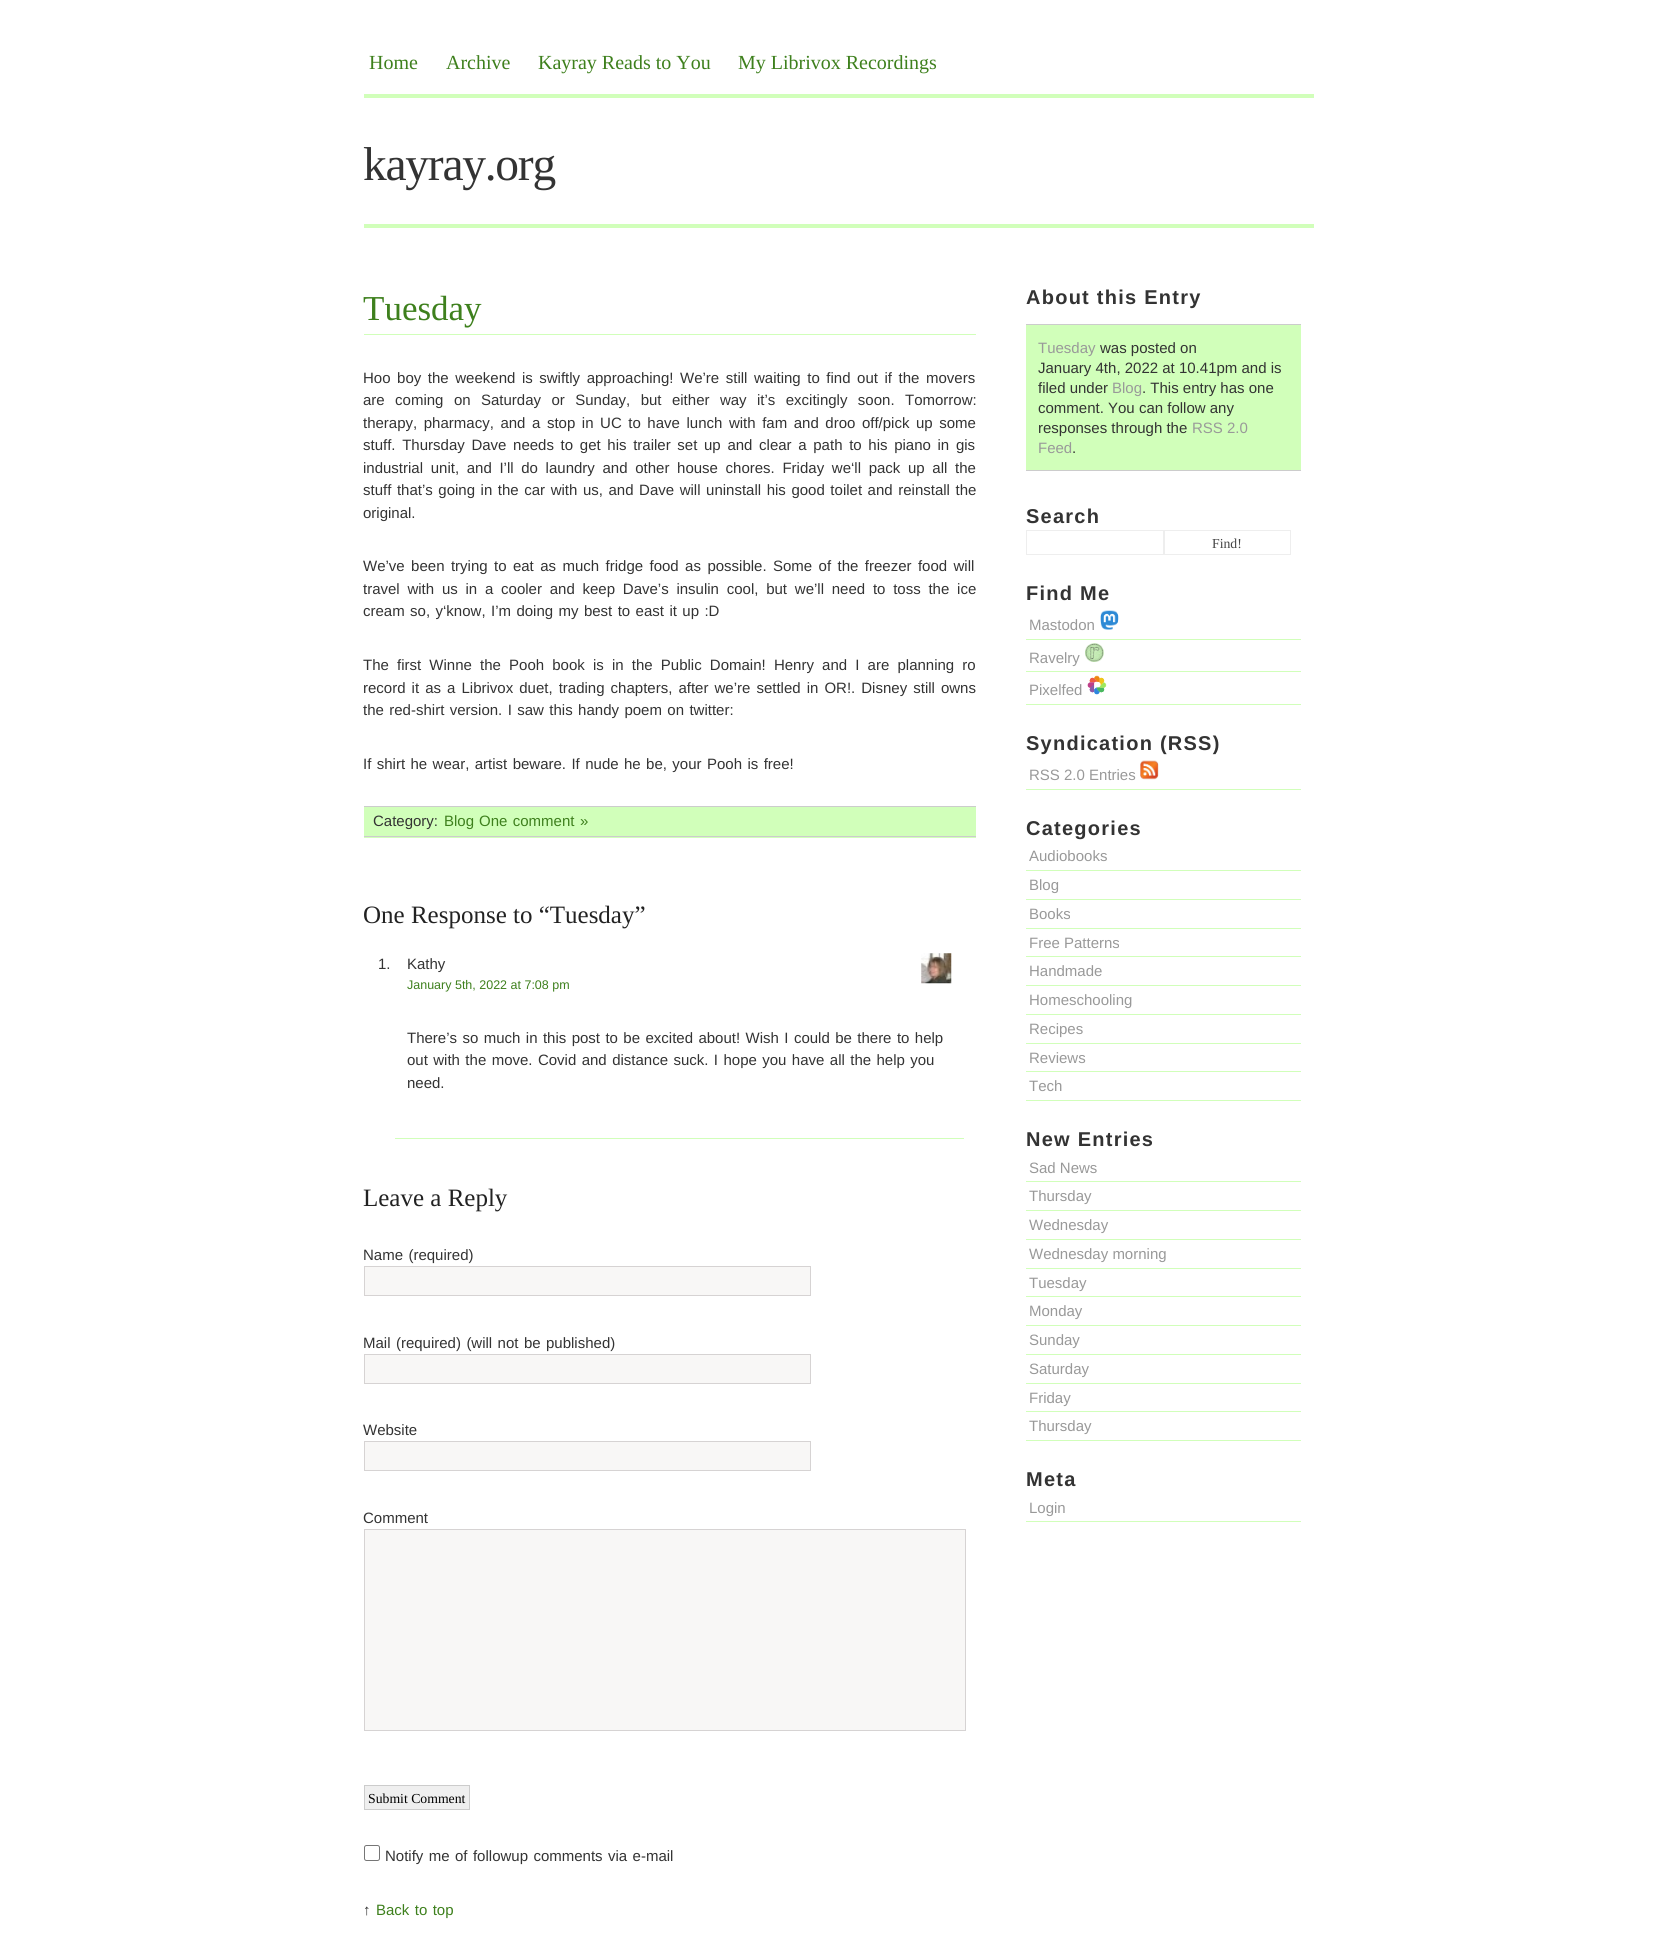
import math
import cairocffi as cairo

surface = cairo.ImageSurface(cairo.FORMAT_RGB24, 1676, 1958)
ctx = cairo.Context(surface)
options = cairo.FontOptions()
options.set_hint_metrics(cairo.HINT_METRICS_OFF)
options.set_hint_style(cairo.HINT_STYLE_NONE)
ctx.set_font_options(options)
ctx.set_miter_limit(4)


def rgb(r, g, b):
    ctx.set_source_rgb(r / 255, g / 255, b / 255)


def face(family, size, italic, bold):
    ctx.select_font_face(family, cairo.FONT_SLANT_ITALIC if italic else cairo.FONT_SLANT_NORMAL, cairo.FONT_WEIGHT_BOLD if bold else cairo.FONT_WEIGHT_NORMAL)
    ctx.set_font_size(size)


def label(x, y, s):
    ctx.move_to(x, y)
    ctx.show_text(s)


def tracked(x, y, s, letter, word):
    ctx.move_to(x, y)
    for ch in s:
        ctx.show_text(ch)
        ctx.rel_move_to(letter + word * (ch == ' '), 0)


def rect(x, y, w, h):
    ctx.rectangle(x, y, w, h)
    ctx.fill()


def rrect(x, y, w, h, r):
    ctx.new_sub_path()
    for i, (u, v) in enumerate([(x + w - r, y + h - r), (x + r, y + h - r), (x + r, y + r), (x + w - r, y + r)]):
        ctx.arc(u, v, r, i * math.pi / 2, (i + 1) * math.pi / 2)
    ctx.close_path()


def image(path, x, y, w, h):
    ctx.save()
    ctx.set_source_surface(cairo.ImageSurface.create_from_png(path), x, y)
    ctx.rectangle(x, y, w, h)
    ctx.fill()
    ctx.restore()


rgb(255, 255, 255)
ctx.paint()
rgb(209, 255, 186)
rect(364, 94, 950, 4)
face('Liberation Serif', 20, 0, 0)
rgb(62, 128, 29)
label(369, 69, 'Home')
label(446, 69, 'Archive')
label(538, 69, 'Kayray Reads to You')
label(738, 69, 'My Librivox Recordings')
rgb(209, 255, 186)
rect(364, 224, 950, 4)
face('Liberation Serif', 47.5, 0, 0)
rgb(51, 51, 51)
tracked(363, 180, 'kayray.org', -1.25, 0)
rgb(209, 255, 186)
rect(364, 334, 612, 1)
face('Liberation Serif', 35, 0, 0)
rgb(62, 128, 29)
label(363, 320, 'Tuesday')
face('Liberation Sans', 15, 0, 0)
rgb(51, 51, 51)
tracked(363, 383, 'Hoo boy the weekend is swiftly approaching! We’re still waiting to find out if the movers', 0, 2.4)
tracked(363, 405, 'are coming on Saturday or Sunday, but either way it’s excitingly soon. Tomorrow:', 0, 6.25)
tracked(363, 428, 'therapy, pharmacy, and a stop in UC to have lunch with fam and droo off/pick up some', 0, 2.4)
tracked(363, 450, 'stuff. Thursday Dave needs to get his trailer set up and clear a path to his piano in gis', 0, 2.5)
tracked(363, 473, 'industrial unit, and I’ll do laundry and other house chores. Friday we‘ll pack up all the', 0, 3.5)
tracked(363, 495, 'stuff that’s going in the car with us, and Dave will uninstall his good toilet and reinstall the', 0, 1.4)
label(363, 518, 'original.')
tracked(363, 571, 'We’ve been trying to eat as much fridge food as possible. Some of the freezer food will', 0, 2.25)
tracked(363, 594, 'travel with us in a cooler and keep Dave’s insulin cool, but we’ll need to toss the ice', 0, 3.6)
tracked(363, 616, 'cream so, y‘know, I’m doing my best to east it up :D', 0, 1.25)
tracked(363, 670, 'The first Winne the Pooh book is in the Public Domain! Henry and I are planning ro', 0, 4)
tracked(363, 693, 'record it as a Librivox duet, trading chapters, after we’re settled in OR!. Disney still owns', 0, 1.9)
tracked(363, 715, 'the red-shirt version. I saw this handy poem on twitter:', 0, 1.25)
tracked(363, 769, 'If shirt he wear, artist beware. If nude he be, your Pooh is free!', 0, 1.25)
rgb(209, 255, 186)
rect(364, 807, 612, 31)
rgb(204, 204, 204)
rect(364, 806, 612, 1)
rect(364, 836, 612, 1)
rgb(51, 51, 51)
label(373, 826, 'Category:')
rgb(62, 128, 29)
label(444, 826, 'Blog')
tracked(479, 826, 'One comment »', 0, 1.25)
face('Liberation Serif', 25, 0, 0)
rgb(34, 34, 34)
label(363, 923, 'One Response to “Tuesday”')
rgb(209, 255, 186)
rect(395, 1138, 569, 1)
face('Liberation Sans', 15, 0, 0)
rgb(51, 51, 51)
label(378, 969, '1.')
label(407, 969, 'Kathy')
image('image0.png', 921, 953, 31, 31)
face('Liberation Sans', 12.5, 0, 0)
rgb(62, 128, 29)
label(407, 989, 'January 5th, 2022 at 7:08 pm')
face('Liberation Sans', 15, 0, 0)
rgb(51, 51, 51)
tracked(407, 1043, 'There’s so much in this post to be excited about! Wish I could be there to help', 0, 1.25)
tracked(407, 1065, 'out with the move. Covid and distance suck. I hope you have all the help you', 0, 1.25)
label(407, 1088, 'need.')
face('Liberation Serif', 25, 0, 0)
rgb(34, 34, 34)
label(363, 1206, 'Leave a Reply')
face('Liberation Sans', 15, 0, 0)
rgb(51, 51, 51)
tracked(363, 1260, 'Name (required)', 0, 1.25)
rgb(248, 247, 246)
ctx.rectangle(364.5, 1266.5, 446, 29)
ctx.fill_preserve()
rgb(214, 211, 211)
ctx.set_line_width(1)
ctx.stroke()
rgb(51, 51, 51)
tracked(363, 1348, 'Mail (required) (will not be published)', 0, 1.25)
rgb(248, 247, 246)
ctx.rectangle(364.5, 1354.5, 446, 29)
ctx.fill_preserve()
rgb(214, 211, 211)
ctx.stroke()
rgb(51, 51, 51)
label(363, 1435, 'Website')
rgb(248, 247, 246)
ctx.rectangle(364.5, 1441.5, 446, 29)
ctx.fill_preserve()
rgb(214, 211, 211)
ctx.stroke()
rgb(51, 51, 51)
label(363, 1523, 'Comment')
rgb(248, 247, 246)
ctx.rectangle(364.5, 1529.5, 601, 201)
ctx.fill_preserve()
rgb(214, 211, 211)
ctx.stroke()
rgb(239, 239, 239)
ctx.rectangle(364.5, 1785.5, 105, 24)
ctx.fill_preserve()
rgb(204, 204, 204)
ctx.stroke()
face('Liberation Serif', 13.75, 0, 0)
rgb(0, 0, 0)
label(368, 1803, 'Submit Comment')
rrect(364.5, 1845.5, 15, 15, 2)
rgb(118, 118, 118)
ctx.stroke()
face('Liberation Sans', 15, 0, 0)
rgb(51, 51, 51)
tracked(385, 1861, 'Notify me of followup comments via e-mail', 0, 1.25)
label(363, 1915, '↑')
rgb(62, 128, 29)
tracked(376, 1915, 'Back to top', 0, 1.25)
face('Liberation Sans', 20, 0, 1)
rgb(51, 51, 51)
tracked(1026, 304, 'About this Entry', 1.25, 0)
rgb(209, 255, 186)
rect(1026, 325, 275, 145)
rgb(204, 204, 204)
rect(1026, 324, 275, 1)
rect(1026, 470, 275, 1)
face('Liberation Sans', 15, 0, 0)
rgb(153, 153, 153)
label(1038, 353, 'Tuesday')
rgb(51, 51, 51)
label(1100, 353, 'was posted on')
label(1038, 373, 'January 4th, 2022 at 10.41pm and is')
label(1038, 393, 'filed under')
rgb(153, 153, 153)
label(1112, 393, 'Blog')
rgb(51, 51, 51)
label(1142, 393, '. This entry has one')
label(1038, 413, 'comment. You can follow any')
label(1038, 433, 'responses through the')
rgb(153, 153, 153)
label(1192, 433, 'RSS 2.0')
label(1038, 453, 'Feed')
rgb(51, 51, 51)
label(1072, 453, '.')
face('Liberation Sans', 20, 0, 1)
tracked(1026, 523, 'Search', 1.25, 0)
ctx.rectangle(1026.5, 530.5, 137, 24)
rgb(238, 238, 238)
ctx.stroke()
ctx.rectangle(1164.5, 530.5, 126, 24)
ctx.stroke()
face('Liberation Serif', 13.75, 0, 0)
rgb(68, 68, 68)
label(1212, 548, 'Find!')
face('Liberation Sans', 20, 0, 1)
rgb(51, 51, 51)
tracked(1026, 600, 'Find Me', 1.25, 0)
rgb(209, 255, 186)
rect(1026, 639, 275, 1)
face('Liberation Sans', 15, 0, 0)
rgb(153, 153, 153)
label(1029, 630, 'Mastodon')
image('image1.png', 1100, 610, 19, 20)
rgb(209, 255, 186)
rect(1026, 671, 275, 1)
rgb(153, 153, 153)
label(1029, 663, 'Ravelry')
image('image2.png', 1085, 643, 19, 19)
rgb(209, 255, 186)
rect(1026, 704, 275, 1)
rgb(153, 153, 153)
label(1029, 695, 'Pixelfed')
image('image3.png', 1087, 675, 20, 20)
face('Liberation Sans', 20, 0, 1)
rgb(51, 51, 51)
tracked(1026, 750, 'Syndication (RSS)', 1.25, 0)
rgb(209, 255, 186)
rect(1026, 789, 275, 1)
face('Liberation Sans', 15, 0, 0)
rgb(153, 153, 153)
label(1029, 780, 'RSS 2.0 Entries')
image('image4.png', 1140, 760, 19, 20)
face('Liberation Sans', 20, 0, 1)
rgb(51, 51, 51)
tracked(1026, 835, 'Categories', 1.25, 0)
rgb(209, 255, 186)
rect(1026, 870, 275, 1)
face('Liberation Sans', 15, 0, 0)
rgb(153, 153, 153)
label(1029, 861, 'Audiobooks')
rgb(209, 255, 186)
rect(1026, 899, 275, 1)
rgb(153, 153, 153)
label(1029, 890, 'Blog')
rgb(209, 255, 186)
rect(1026, 928, 275, 1)
rgb(153, 153, 153)
label(1029, 919, 'Books')
rgb(209, 255, 186)
rect(1026, 956, 275, 1)
rgb(153, 153, 153)
label(1029, 948, 'Free Patterns')
rgb(209, 255, 186)
rect(1026, 985, 275, 1)
rgb(153, 153, 153)
label(1029, 976, 'Handmade')
rgb(209, 255, 186)
rect(1026, 1014, 275, 1)
rgb(153, 153, 153)
label(1029, 1005, 'Homeschooling')
rgb(209, 255, 186)
rect(1026, 1043, 275, 1)
rgb(153, 153, 153)
label(1029, 1034, 'Recipes')
rgb(209, 255, 186)
rect(1026, 1071, 275, 1)
rgb(153, 153, 153)
label(1029, 1063, 'Reviews')
rgb(209, 255, 186)
rect(1026, 1100, 275, 1)
rgb(153, 153, 153)
label(1029, 1091, 'Tech')
face('Liberation Sans', 20, 0, 1)
rgb(51, 51, 51)
tracked(1026, 1146, 'New Entries', 1.25, 0)
rgb(209, 255, 186)
rect(1026, 1181, 275, 1)
face('Liberation Sans', 15, 0, 0)
rgb(153, 153, 153)
label(1029, 1173, 'Sad News')
rgb(209, 255, 186)
rect(1026, 1210, 275, 1)
rgb(153, 153, 153)
label(1029, 1201, 'Thursday')
rgb(209, 255, 186)
rect(1026, 1239, 275, 1)
rgb(153, 153, 153)
label(1029, 1230, 'Wednesday')
rgb(209, 255, 186)
rect(1026, 1268, 275, 1)
rgb(153, 153, 153)
label(1029, 1259, 'Wednesday morning')
rgb(209, 255, 186)
rect(1026, 1296, 275, 1)
rgb(153, 153, 153)
label(1029, 1288, 'Tuesday')
rgb(209, 255, 186)
rect(1026, 1325, 275, 1)
rgb(153, 153, 153)
label(1029, 1316, 'Monday')
rgb(209, 255, 186)
rect(1026, 1354, 275, 1)
rgb(153, 153, 153)
label(1029, 1345, 'Sunday')
rgb(209, 255, 186)
rect(1026, 1383, 275, 1)
rgb(153, 153, 153)
label(1029, 1374, 'Saturday')
rgb(209, 255, 186)
rect(1026, 1411, 275, 1)
rgb(153, 153, 153)
label(1029, 1403, 'Friday')
rgb(209, 255, 186)
rect(1026, 1440, 275, 1)
rgb(153, 153, 153)
label(1029, 1431, 'Thursday')
face('Liberation Sans', 20, 0, 1)
rgb(51, 51, 51)
tracked(1026, 1486, 'Meta', 1.25, 0)
rgb(209, 255, 186)
rect(1026, 1521, 275, 1)
face('Liberation Sans', 15, 0, 0)
rgb(153, 153, 153)
label(1029, 1513, 'Login')
surface.write_to_png('render.png')
